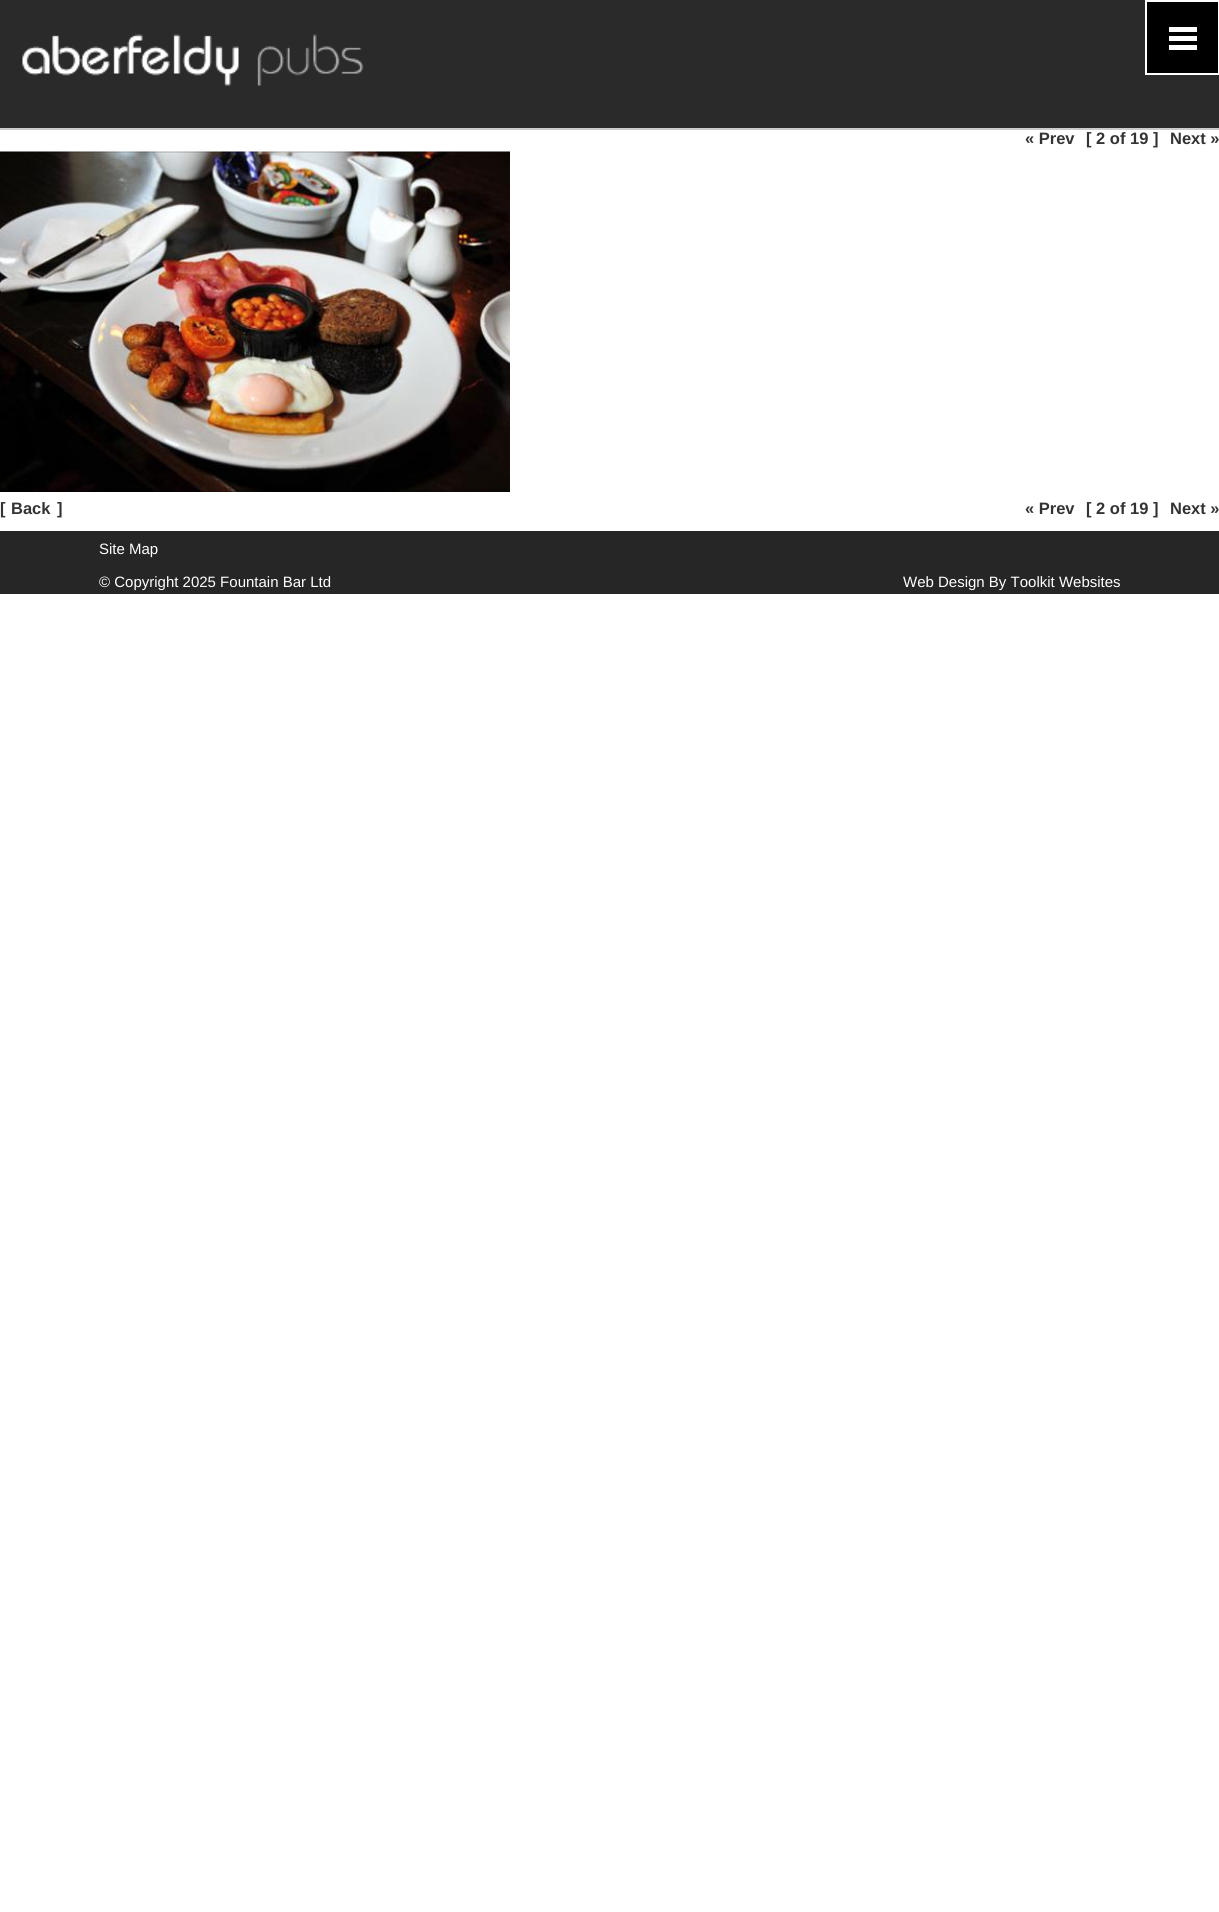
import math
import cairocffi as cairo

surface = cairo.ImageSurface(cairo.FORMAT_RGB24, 1219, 1912)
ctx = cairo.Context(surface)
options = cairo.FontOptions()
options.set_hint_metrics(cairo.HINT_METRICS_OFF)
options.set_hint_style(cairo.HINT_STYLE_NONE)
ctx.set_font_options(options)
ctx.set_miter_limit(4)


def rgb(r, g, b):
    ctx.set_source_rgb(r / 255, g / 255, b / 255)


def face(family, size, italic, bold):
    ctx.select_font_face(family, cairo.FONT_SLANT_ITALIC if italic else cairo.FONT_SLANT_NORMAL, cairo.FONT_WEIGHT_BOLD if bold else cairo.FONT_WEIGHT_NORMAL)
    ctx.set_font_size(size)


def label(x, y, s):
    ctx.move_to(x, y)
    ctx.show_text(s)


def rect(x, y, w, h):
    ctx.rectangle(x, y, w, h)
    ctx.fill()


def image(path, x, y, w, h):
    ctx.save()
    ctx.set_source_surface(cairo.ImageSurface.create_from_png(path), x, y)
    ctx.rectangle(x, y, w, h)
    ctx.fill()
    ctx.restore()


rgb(255, 255, 255)
ctx.paint()
rgb(42, 42, 42)
rect(0, 0, 1219, 128)
rgb(204, 204, 204)
rect(0, 128, 1219, 2)
image('image0.png', 22, 34, 342, 52)
rgb(0, 0, 0)
ctx.rectangle(1146, 1, 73, 73)
ctx.fill_preserve()
rgb(255, 255, 255)
ctx.stroke()
rect(1169, 36, 28, 5)
rect(1169, 45, 28, 5)
rect(1169, 27, 28, 5)
face('Liberation Sans', 16.5, 0, 1)
rgb(51, 51, 51)
label(1025, 144, '« Prev')
label(1086, 144, '[ 2 of 19 ]')
label(1170, 144, 'Next »')
image('image1.png', 0, 151, 510, 341)
label(0, 514, '[')
label(11, 514, 'Back')
label(57, 514, ']')
label(1025, 514, '« Prev')
label(1086, 514, '[ 2 of 19 ]')
label(1170, 514, 'Next »')
rgb(38, 38, 38)
rect(0, 531, 1219, 63)
face('Liberation Sans', 15, 0, 0)
rgb(255, 255, 255)
label(99, 554, 'Site Map')
label(99, 587, '© Copyright 2025 Fountain Bar Ltd')
label(903, 587, 'Web Design By Toolkit Websites')
surface.write_to_png('render.png')
